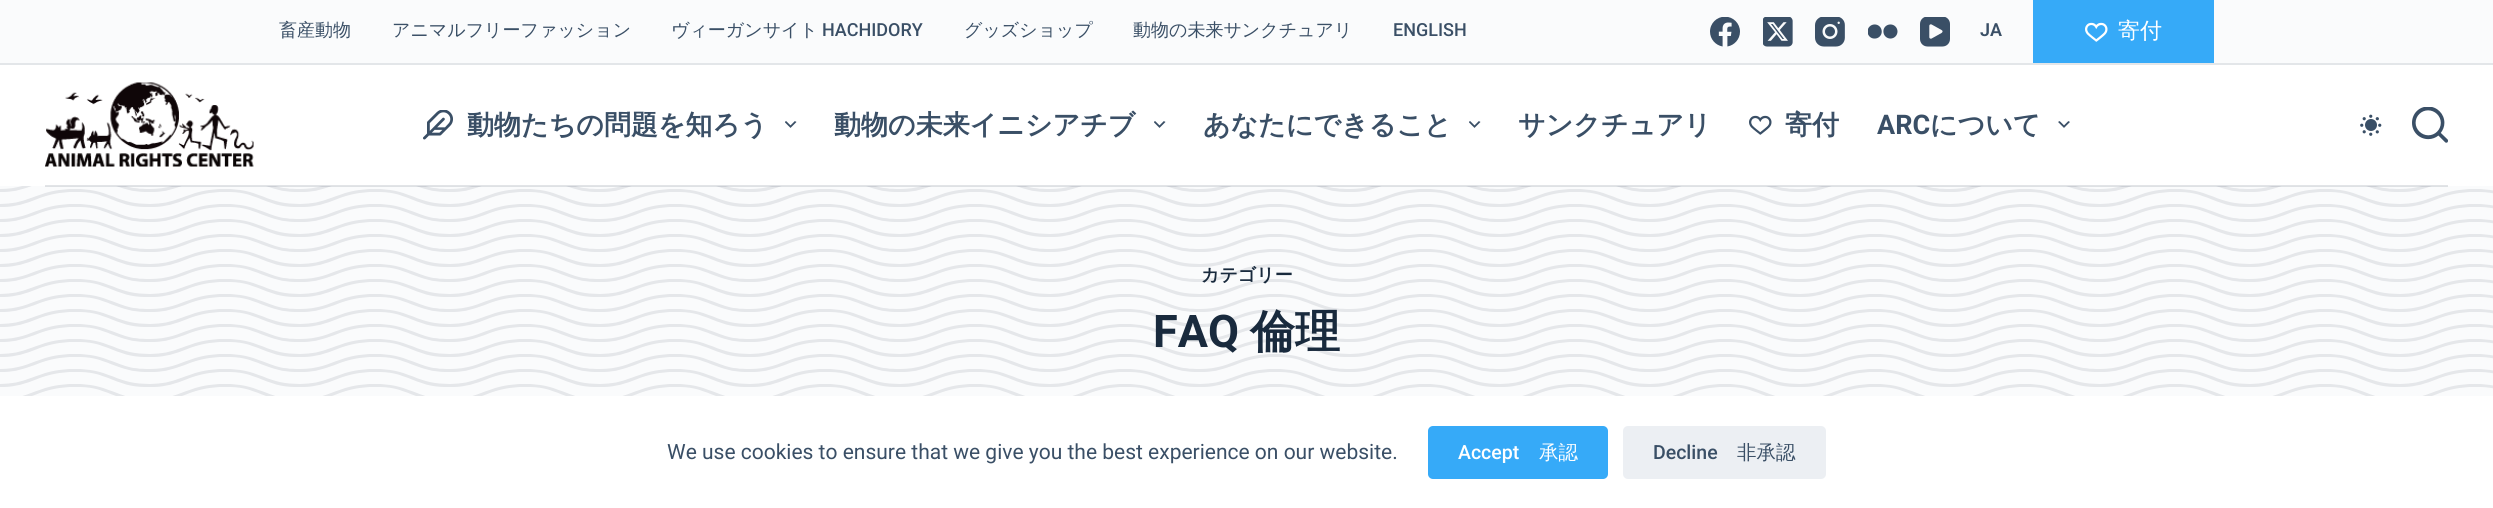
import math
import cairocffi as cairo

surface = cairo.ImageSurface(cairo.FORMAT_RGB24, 2493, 508)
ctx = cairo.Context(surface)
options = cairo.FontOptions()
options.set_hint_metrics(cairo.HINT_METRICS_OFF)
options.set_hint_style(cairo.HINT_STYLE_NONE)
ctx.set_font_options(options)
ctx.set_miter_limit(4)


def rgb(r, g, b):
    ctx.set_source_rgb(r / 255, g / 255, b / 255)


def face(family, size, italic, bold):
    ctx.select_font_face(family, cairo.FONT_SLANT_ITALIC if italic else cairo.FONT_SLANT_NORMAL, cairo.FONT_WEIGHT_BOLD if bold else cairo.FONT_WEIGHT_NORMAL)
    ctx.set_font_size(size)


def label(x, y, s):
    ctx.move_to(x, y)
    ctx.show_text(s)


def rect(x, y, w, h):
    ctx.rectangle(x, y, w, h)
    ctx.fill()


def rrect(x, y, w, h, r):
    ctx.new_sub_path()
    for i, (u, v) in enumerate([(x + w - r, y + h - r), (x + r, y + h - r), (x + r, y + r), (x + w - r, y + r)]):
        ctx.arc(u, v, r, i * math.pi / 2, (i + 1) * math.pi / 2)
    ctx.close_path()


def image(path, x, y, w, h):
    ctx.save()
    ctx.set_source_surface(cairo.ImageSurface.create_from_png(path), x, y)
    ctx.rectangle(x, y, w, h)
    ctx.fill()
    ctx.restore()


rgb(250, 251, 252)
ctx.paint()
rgb(227, 230, 233)
rect(0, 63, 2493, 2)
face('WenQuanYi Zen Hei Medium', 18, 0, 0)
rgb(58, 79, 102)
label(279, 36, '畜産動物')
label(392, 36, 'アニマルフリーファッション')
label(671, 36, 'ヴィーガンサイト')
face('Roboto Medium', 18, 0, 0)
label(822, 36, 'HACHIDORY')
face('WenQuanYi Zen Hei Medium', 18, 0, 0)
label(964, 36, 'グッズショップ')
label(1133, 36, '動物の未来サンクチュアリ')
face('Roboto Medium', 18, 0, 0)
label(1393, 36, 'ENGLISH')
image('image0.png', 1710, 17, 30, 30)
image('image1.png', 1763, 17, 30, 30)
image('image2.png', 1815, 17, 30, 30)
image('image3.png', 1868, 24, 30, 15)
image('image4.png', 1920, 17, 30, 30)
face('Roboto SemiBold', 18, 0, 0)
label(1980, 36, 'JA')
rgb(54, 170, 248)
rect(2033, 0, 181, 63)
image('image5.png', 2085, 22, 23, 20)
face('WenQuanYi Zen Hei Medium', 22, 0, 0)
rgb(255, 255, 255)
label(2118, 38, '寄付')
rect(0, 65, 2493, 121)
image('image13.png', 0, 186, 2493, 210)
ctx.set_source_rgba(0.169, 0.239, 0.31, 0.14)
rect(45, 185, 2403, 2)
image('image6.png', 45, 82, 209, 85)
image('image7.png', 423, 110, 30, 30)
face('WenQuanYi Zen Hei', 27, 0, 1)
rgb(58, 79, 102)
label(467, 134, '動物たちの問題を知ろう')
image('image8.png', 785, 121, 12, 7)
label(834, 134, '動物の未来イニシアチブ')
image('image8.png', 1154, 121, 12, 7)
label(1203, 134, 'あなたにできること')
image('image8.png', 1469, 121, 12, 7)
label(1518, 134, 'サンクチュアリ')
image('image9.png', 1749, 115, 23, 20)
label(1785, 134, '寄付')
face('Roboto', 27, 0, 1)
label(1877, 134, 'ARC')
face('WenQuanYi Zen Hei', 27, 0, 1)
label(1930, 134, 'について')
image('image10.png', 2058, 121, 12, 7)
image('image11.png', 2360, 114, 22, 22)
image('image12.png', 2412, 107, 36, 36)
face('WenQuanYi Zen Hei', 18, 0, 1)
rgb(25, 42, 61)
label(1201, 281, 'カテゴリー')
face('Roboto', 45, 0, 1)
label(1153, 347, 'FAQ')
face('WenQuanYi Zen Hei', 45, 0, 1)
label(1250, 347, '倫理')
rgb(255, 255, 255)
rect(0, 396, 2493, 112)
face('Roboto', 21, 0, 0)
rgb(58, 79, 102)
label(667, 459, 'We use cookies to ensure that we give you the best experience on our website.')
rgb(54, 170, 248)
rrect(1428, 426, 180, 53, 5)
ctx.fill()
face('Roboto Medium', 19.5, 0, 0)
rgb(255, 255, 255)
label(1458, 459, 'Accept')
face('WenQuanYi Zen Hei Medium', 19.5, 0, 0)
label(1539, 459, '承認')
rgb(236, 239, 243)
rrect(1623, 426, 203, 53, 5)
ctx.fill()
face('Roboto Medium', 19.5, 0, 0)
rgb(58, 79, 102)
label(1653, 459, 'Decline')
face('WenQuanYi Zen Hei Medium', 19.5, 0, 0)
label(1737, 459, '非承認')
surface.write_to_png('render.png')
